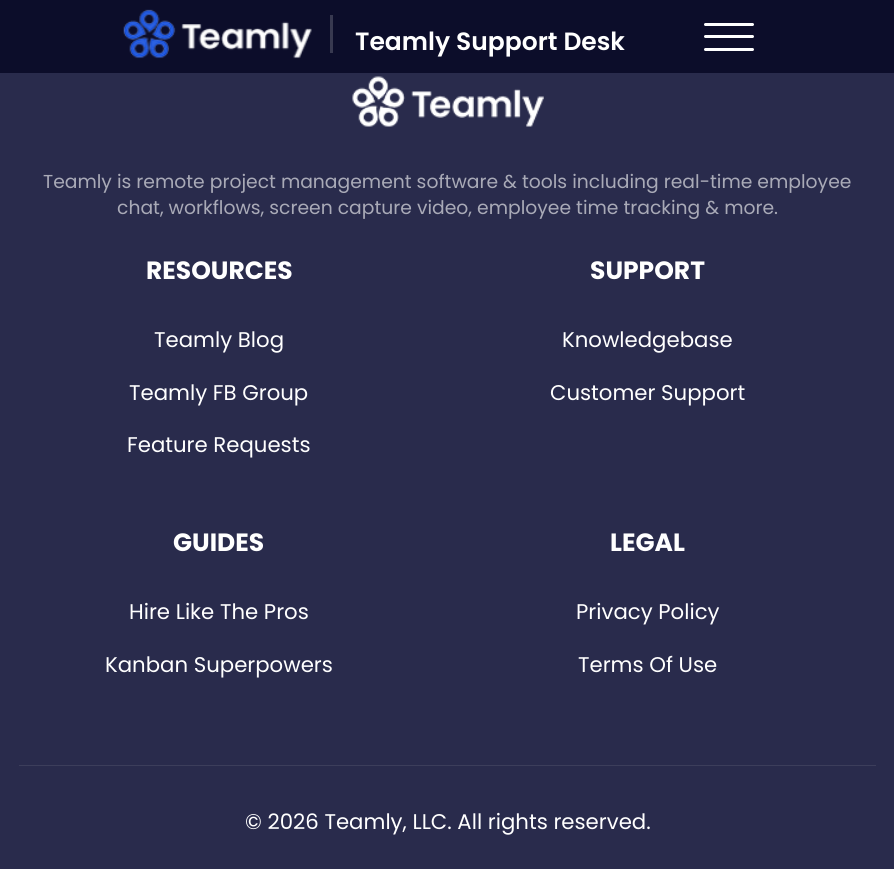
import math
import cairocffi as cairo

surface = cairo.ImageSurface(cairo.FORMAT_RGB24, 894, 869)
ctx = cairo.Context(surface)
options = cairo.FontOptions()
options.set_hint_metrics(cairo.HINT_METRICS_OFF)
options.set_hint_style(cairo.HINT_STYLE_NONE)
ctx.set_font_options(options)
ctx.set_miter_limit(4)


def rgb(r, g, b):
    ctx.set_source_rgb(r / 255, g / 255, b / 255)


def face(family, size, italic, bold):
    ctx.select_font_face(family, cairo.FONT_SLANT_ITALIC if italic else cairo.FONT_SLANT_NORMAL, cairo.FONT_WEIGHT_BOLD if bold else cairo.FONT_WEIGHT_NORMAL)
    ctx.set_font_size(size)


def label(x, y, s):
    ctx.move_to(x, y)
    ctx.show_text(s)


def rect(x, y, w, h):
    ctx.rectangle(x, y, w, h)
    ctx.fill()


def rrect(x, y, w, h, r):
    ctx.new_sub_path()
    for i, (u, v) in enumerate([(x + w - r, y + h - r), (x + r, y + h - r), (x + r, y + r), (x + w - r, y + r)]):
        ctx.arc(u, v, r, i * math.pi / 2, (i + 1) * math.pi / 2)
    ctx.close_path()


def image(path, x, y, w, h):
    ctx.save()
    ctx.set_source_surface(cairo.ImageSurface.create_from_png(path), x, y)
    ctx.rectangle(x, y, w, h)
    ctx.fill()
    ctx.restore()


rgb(41, 43, 76)
ctx.paint()
rgb(12, 13, 42)
rect(0, 0, 894, 73)
image('image0.png', 123, 9, 189, 50)
rgb(56, 57, 80)
rect(330, 15, 3, 38)
face('Poppins SemiBold', 25, 0, 0)
rgb(255, 255, 255)
label(355, 50, 'Teamly Support Desk')
rrect(704, 23, 50, 3, 1.5)
ctx.fill()
rrect(704, 35, 50, 3, 1.5)
ctx.fill()
rrect(704, 48, 50, 3, 1.5)
ctx.fill()
image('image1.png', 352, 76, 192, 51)
face('Poppins', 18.75, 0, 0)
rgb(169, 170, 183)
label(43, 188, 'Teamly is remote project management software & tools including real-time employee')
label(117, 214, 'chat, workflows, screen capture video, employee time tracking & more.')
face('Poppins', 25, 0, 1)
rgb(255, 255, 255)
label(146, 279, 'RESOURCES')
face('Poppins', 21.25, 0, 0)
label(154, 347, 'Teamly Blog')
label(129, 400, 'Teamly FB Group')
label(127, 452, 'Feature Requests')
face('Poppins', 25, 0, 1)
label(590, 279, 'SUPPORT')
face('Poppins', 21.25, 0, 0)
label(562, 347, 'Knowledgebase')
label(550, 400, 'Customer Support')
face('Poppins', 25, 0, 1)
label(173, 551, 'GUIDES')
face('Poppins', 21.25, 0, 0)
label(129, 619, 'Hire Like The Pros')
label(105, 672, 'Kanban Superpowers')
face('Poppins', 25, 0, 1)
label(610, 551, 'LEGAL')
face('Poppins', 21.25, 0, 0)
label(576, 619, 'Privacy Policy')
label(578, 672, 'Terms Of Use')
rgb(60, 62, 91)
rect(19, 765, 857, 1)
rgb(255, 255, 255)
label(245, 829, '© 2026 Teamly, LLC. All rights reserved.')
surface.write_to_png('render.png')
